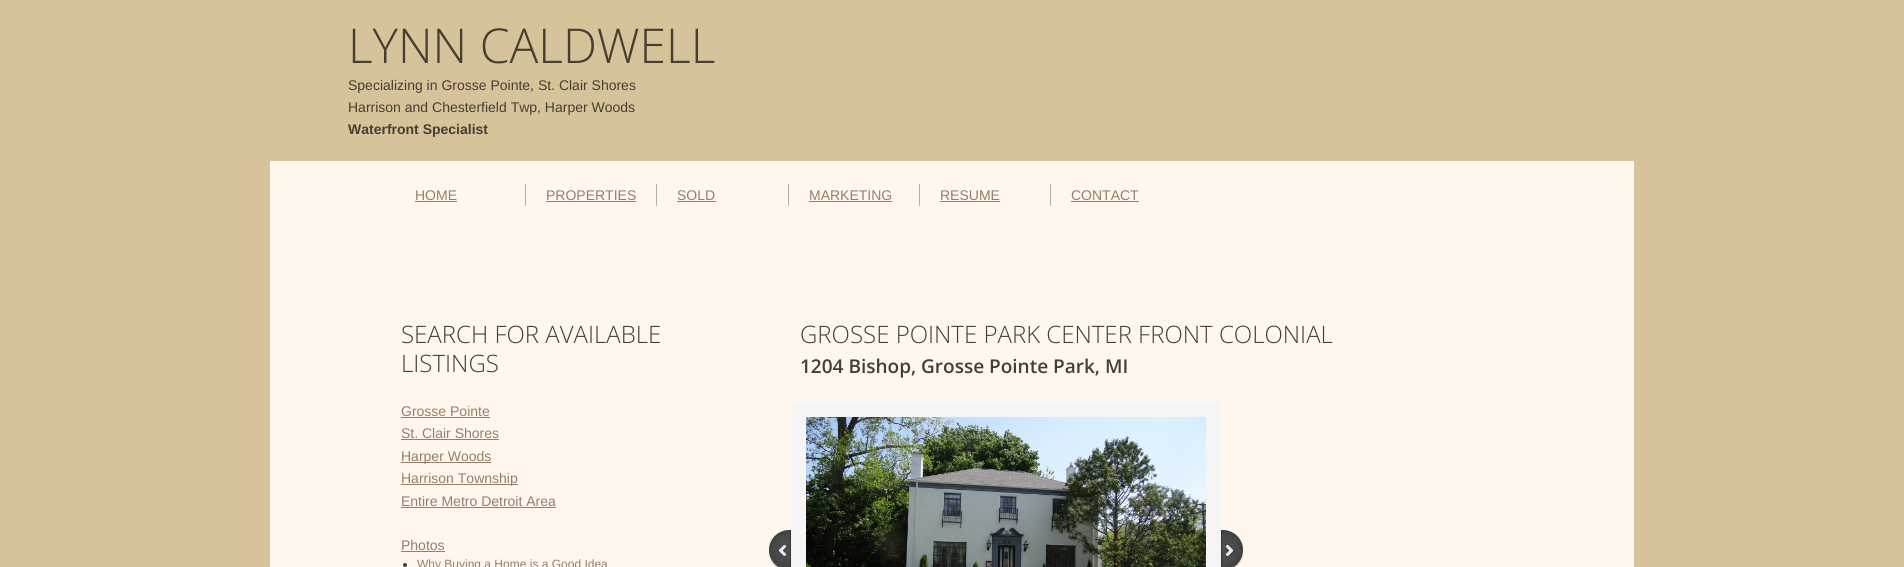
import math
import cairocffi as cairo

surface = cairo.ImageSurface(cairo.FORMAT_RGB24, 1904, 567)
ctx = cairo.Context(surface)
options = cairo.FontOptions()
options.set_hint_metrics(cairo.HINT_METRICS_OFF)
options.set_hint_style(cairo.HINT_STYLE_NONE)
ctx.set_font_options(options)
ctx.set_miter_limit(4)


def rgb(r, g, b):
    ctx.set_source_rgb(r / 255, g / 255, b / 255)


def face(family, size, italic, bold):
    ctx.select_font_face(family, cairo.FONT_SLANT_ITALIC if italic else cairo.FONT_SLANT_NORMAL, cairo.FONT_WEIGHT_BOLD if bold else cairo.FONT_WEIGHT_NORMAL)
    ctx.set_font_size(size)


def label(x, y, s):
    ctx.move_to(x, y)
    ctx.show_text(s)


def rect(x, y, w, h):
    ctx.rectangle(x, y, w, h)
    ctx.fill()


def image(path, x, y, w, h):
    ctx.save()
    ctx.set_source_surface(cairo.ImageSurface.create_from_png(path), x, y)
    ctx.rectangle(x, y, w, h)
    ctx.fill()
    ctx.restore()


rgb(214, 195, 154)
ctx.paint()
rgb(255, 247, 238)
rect(270, 161, 1364, 406)
face('Open Sans Light', 48, 0, 0)
rgb(71, 61, 50)
label(348, 63, 'LYNN CALDWELL')
face('Liberation Sans', 14, 0, 0)
label(348, 90, 'Specializing in Grosse Pointe, St. Clair Shores')
label(348, 112, 'Harrison and Chesterfield Twp, Harper Woods')
face('Liberation Sans', 14, 0, 1)
label(348, 134, 'Waterfront Specialist')
rgb(174, 174, 174)
rect(525, 184, 1, 22)
face('Liberation Sans', 14, 0, 0)
rgb(148, 127, 104)
label(415, 200, 'HOME')
rect(415, 201, 42, 1)
rgb(174, 174, 174)
rect(656, 184, 1, 22)
rgb(148, 127, 104)
label(546, 200, 'PROPERTIES')
rect(546, 201, 90, 1)
rgb(174, 174, 174)
rect(788, 184, 1, 22)
rgb(148, 127, 104)
label(677, 200, 'SOLD')
rect(677, 201, 39, 1)
rgb(174, 174, 174)
rect(919, 184, 1, 22)
rgb(148, 127, 104)
label(809, 200, 'MARKETING')
rect(809, 201, 83, 1)
rgb(174, 174, 174)
rect(1050, 184, 1, 22)
rgb(148, 127, 104)
label(940, 200, 'RESUME')
rect(940, 201, 60, 1)
label(1071, 200, 'CONTACT')
rect(1071, 201, 68, 1)
face('Open Sans Light', 24, 0, 0)
rgb(71, 61, 50)
label(401, 343, 'SEARCH FOR AVAILABLE')
label(401, 372, 'LISTINGS')
face('Liberation Sans', 14, 0, 0)
rgb(148, 127, 104)
label(401, 416, 'Grosse Pointe')
rect(401, 417, 89, 1)
label(401, 438, 'St. Clair Shores')
rect(401, 439, 98, 1)
rect(401, 462, 90, 1)
label(401, 461, 'Harper Woods')
rect(401, 484, 117, 1)
label(401, 483, 'Harrison Township')
label(401, 506, 'Entire Metro Detroit Area')
rect(401, 507, 155, 1)
label(401, 550, 'Photos')
rect(401, 551, 44, 1)
face('Open Sans Light', 24, 0, 0)
rgb(71, 61, 50)
label(800, 343, 'GROSSE POINTE PARK CENTER FRONT COLONIAL')
face('Open Sans SemiBold', 19, 0, 0)
label(800, 373, '1204 Bishop, Grosse Pointe Park, MI')
ctx.new_path()
ctx.arc(405, 565, 2, 0, 2 * math.pi)
ctx.fill()
face('Liberation Sans', 12, 0, 0)
rgb(148, 127, 104)
label(417, 568, 'Why Buying a Home is a Good Idea')
image('image0.png', 769, 530, 22, 37)
ctx.rectangle(798.5, 409.5, 415, 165)
rgb(245, 245, 245)
ctx.set_line_width(15)
ctx.stroke()
image('image1.png', 806, 417, 400, 150)
image('image2.png', 1221, 530, 22, 37)
surface.write_to_png('render.png')
